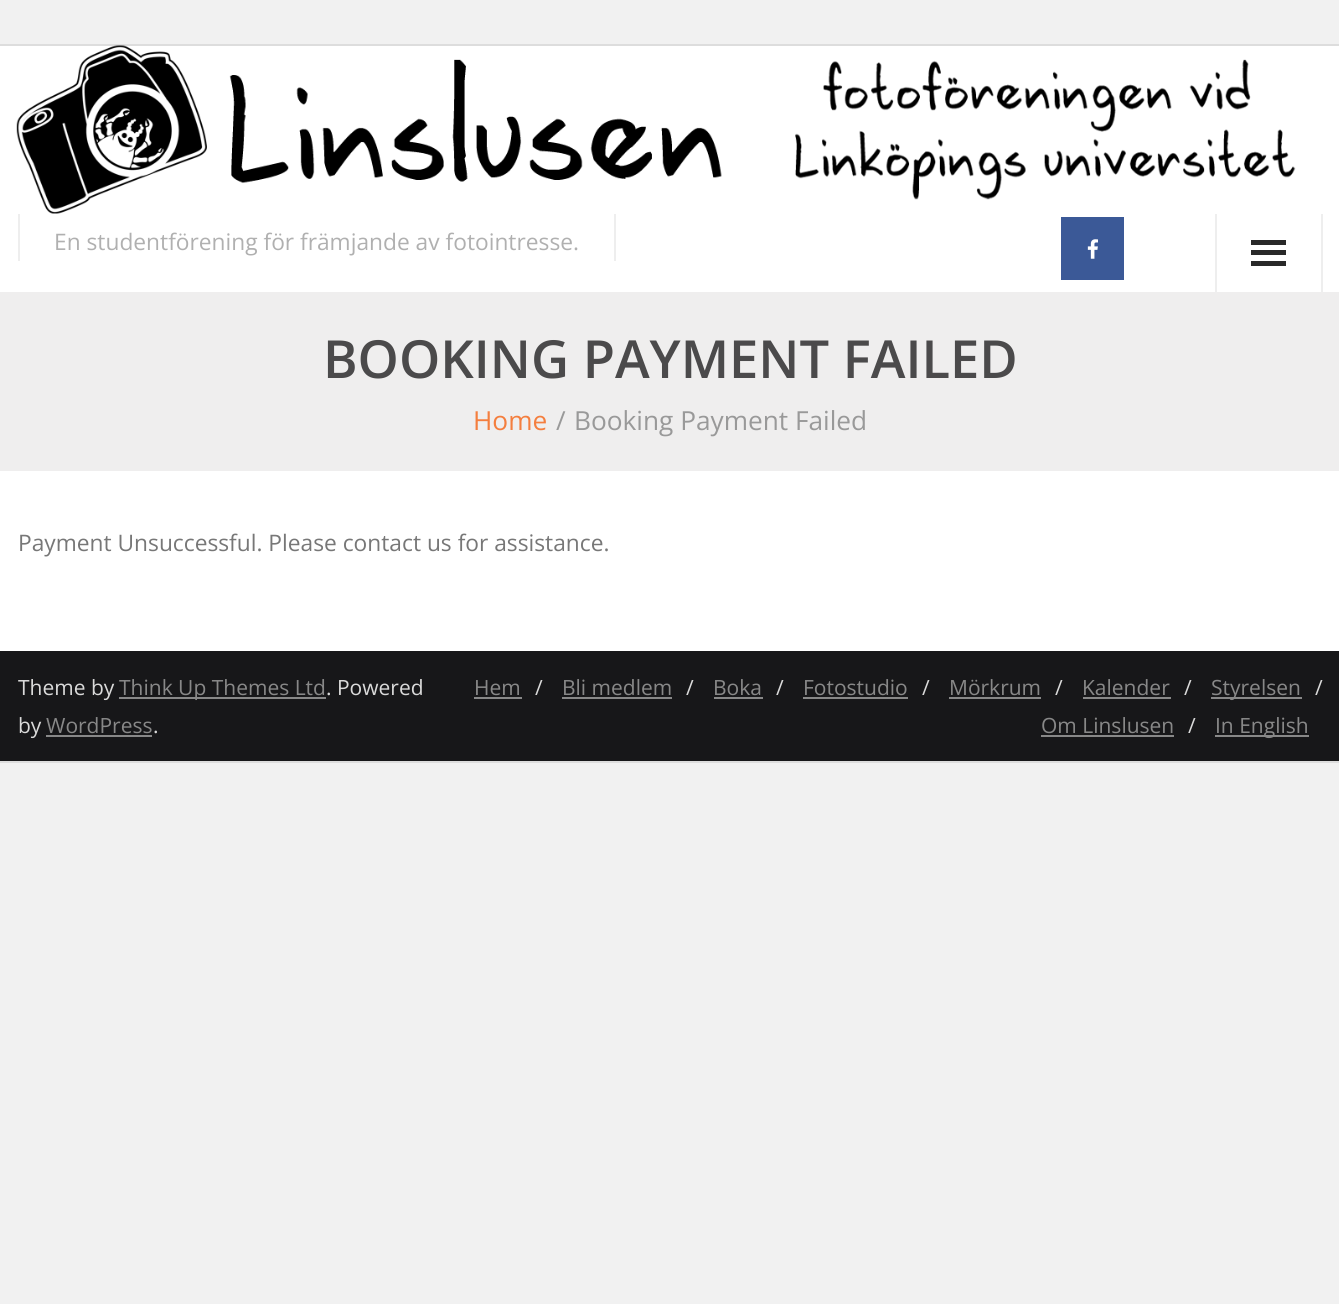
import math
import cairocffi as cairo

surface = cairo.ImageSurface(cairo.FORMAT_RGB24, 1339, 1304)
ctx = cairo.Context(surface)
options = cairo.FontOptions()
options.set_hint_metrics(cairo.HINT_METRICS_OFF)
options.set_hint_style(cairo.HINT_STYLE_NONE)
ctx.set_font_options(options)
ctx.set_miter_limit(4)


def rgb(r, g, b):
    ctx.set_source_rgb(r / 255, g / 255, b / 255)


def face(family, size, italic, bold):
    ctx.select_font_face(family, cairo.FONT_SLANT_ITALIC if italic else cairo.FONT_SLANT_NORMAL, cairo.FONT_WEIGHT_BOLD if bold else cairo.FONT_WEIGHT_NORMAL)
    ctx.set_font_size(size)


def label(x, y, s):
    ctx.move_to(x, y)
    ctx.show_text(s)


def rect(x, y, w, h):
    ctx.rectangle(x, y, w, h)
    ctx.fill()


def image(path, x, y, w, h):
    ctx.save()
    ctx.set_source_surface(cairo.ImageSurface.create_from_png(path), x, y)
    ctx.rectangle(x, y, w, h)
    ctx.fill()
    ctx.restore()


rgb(241, 241, 241)
ctx.paint()
rgb(255, 255, 255)
rect(0, 46, 1339, 605)
rgb(221, 221, 221)
rect(0, 44, 1339, 2)
rect(0, 761, 1339, 2)
image('image0.png', 16, 45, 1280, 169)
rgb(238, 238, 238)
rect(614, 214, 2, 47)
rect(18, 214, 2, 47)
face('Open Sans', 22.75, 0, 0)
rgb(176, 176, 176)
label(54, 250, 'En studentförening för främjande av fotointresse.')
rgb(59, 89, 151)
rect(1061, 217, 63, 63)
image('image1.png', 1087, 239, 11, 20)
rgb(238, 238, 238)
rect(1321, 214, 2, 78)
rect(1215, 214, 2, 78)
rgb(41, 41, 41)
rect(1251, 240, 35, 5)
rect(1251, 250, 35, 5)
rect(1251, 261, 35, 5)
rgb(239, 238, 238)
rect(0, 292, 1339, 179)
face('Open Sans SemiBold', 52.5, 0, 0)
rgb(75, 74, 75)
label(323, 378, 'BOOKING PAYMENT FAILED')
face('Open Sans', 26.25, 0, 0)
rgb(244, 126, 62)
label(473, 430, 'Home')
rgb(153, 153, 153)
label(556, 430, '/')
label(574, 430, 'Booking Payment Failed')
face('Open Sans', 22.75, 0, 0)
rgb(119, 119, 119)
label(18, 551, 'Payment Unsuccessful. Please contact us for assistance.')
rgb(23, 23, 25)
rect(0, 651, 1339, 110)
face('Open Sans', 21, 0, 0)
rgb(218, 218, 218)
label(18, 695, 'Theme by')
rgb(136, 136, 136)
rect(119, 697, 207, 2)
label(119, 695, 'Think Up Themes Ltd')
rgb(218, 218, 218)
label(326, 695, '. Powered')
label(18, 733, 'by')
rgb(136, 136, 136)
label(46, 733, 'WordPress')
rect(46, 735, 106, 2)
rgb(218, 218, 218)
label(153, 733, '.')
rgb(136, 136, 136)
label(474, 695, 'Hem')
rect(474, 697, 48, 2)
rgb(218, 218, 218)
label(535, 695, '/')
rgb(136, 136, 136)
label(562, 695, 'Bli medlem')
rect(562, 697, 110, 2)
rgb(218, 218, 218)
label(686, 695, '/')
rgb(136, 136, 136)
label(713, 695, 'Boka')
rect(714, 697, 49, 2)
rgb(218, 218, 218)
label(776, 695, '/')
rgb(136, 136, 136)
label(803, 695, 'Fotostudio')
rect(803, 697, 105, 2)
rgb(218, 218, 218)
label(922, 695, '/')
rgb(136, 136, 136)
label(949, 695, 'Mörkrum')
rect(949, 697, 92, 2)
rgb(218, 218, 218)
label(1055, 695, '/')
rgb(136, 136, 136)
label(1082, 695, 'Kalender')
rect(1083, 697, 88, 2)
rgb(218, 218, 218)
label(1184, 695, '/')
rgb(136, 136, 136)
rect(1211, 697, 91, 2)
label(1211, 695, 'Styrelsen')
rgb(218, 218, 218)
label(1315, 695, '/')
rgb(136, 136, 136)
label(1041, 733, 'Om Linslusen')
rect(1041, 735, 133, 2)
rgb(218, 218, 218)
label(1188, 733, '/')
rgb(136, 136, 136)
rect(1215, 735, 94, 2)
label(1215, 733, 'In English')
surface.write_to_png('render.png')
